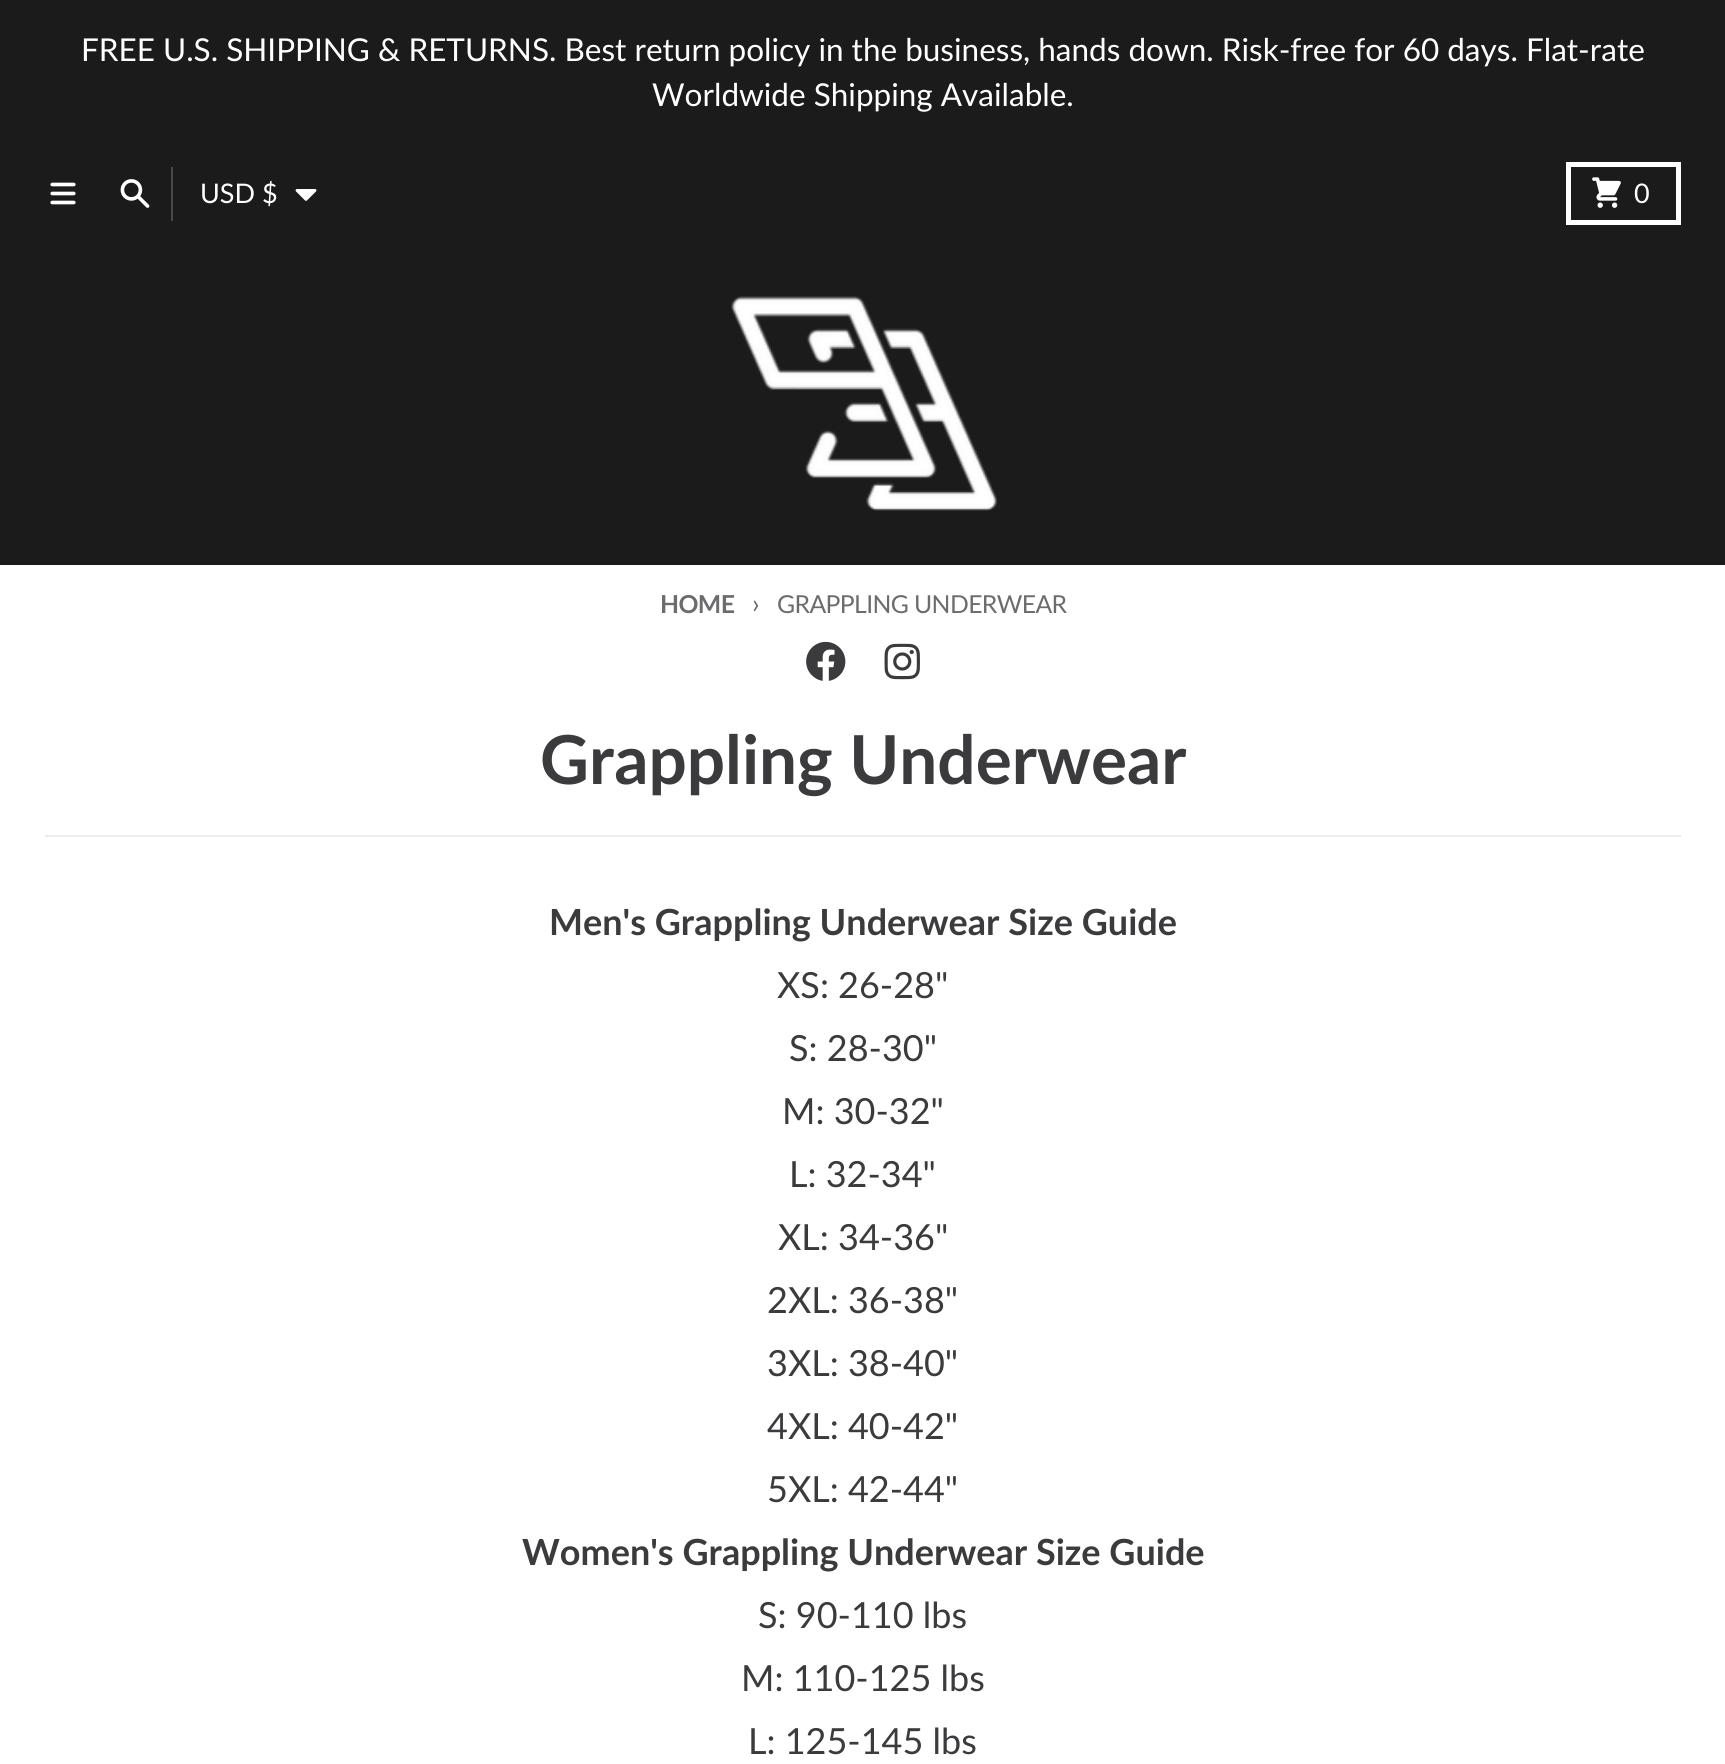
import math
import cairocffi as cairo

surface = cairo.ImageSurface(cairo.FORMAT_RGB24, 1725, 1764)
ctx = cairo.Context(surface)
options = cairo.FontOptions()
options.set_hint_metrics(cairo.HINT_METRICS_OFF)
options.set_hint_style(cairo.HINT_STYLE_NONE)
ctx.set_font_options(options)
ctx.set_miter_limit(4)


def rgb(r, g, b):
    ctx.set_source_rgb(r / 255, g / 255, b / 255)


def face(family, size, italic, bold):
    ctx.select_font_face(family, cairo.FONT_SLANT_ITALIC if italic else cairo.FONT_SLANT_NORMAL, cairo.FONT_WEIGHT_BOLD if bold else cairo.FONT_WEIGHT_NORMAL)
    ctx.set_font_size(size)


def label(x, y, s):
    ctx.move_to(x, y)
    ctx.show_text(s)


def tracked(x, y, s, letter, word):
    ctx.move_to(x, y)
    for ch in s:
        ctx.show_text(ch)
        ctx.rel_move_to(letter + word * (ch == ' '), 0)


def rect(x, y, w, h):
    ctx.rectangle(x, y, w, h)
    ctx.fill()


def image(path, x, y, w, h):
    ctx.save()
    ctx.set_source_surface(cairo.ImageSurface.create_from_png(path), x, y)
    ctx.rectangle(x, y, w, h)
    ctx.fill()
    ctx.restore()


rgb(27, 27, 27)
ctx.paint()
face('Lato', 31.5, 0, 0)
rgb(255, 255, 255)
label(81, 61, 'FREE U.S. SHIPPING & RETURNS. Best return policy in the business, hands down. Risk-free for 60 days. Flat-rate')
label(652, 106, 'Worldwide Shipping Available.')
image('image0.png', 50, 182, 26, 23)
image('image1.png', 120, 179, 30, 29)
rgb(73, 73, 73)
rect(171, 167, 2, 54)
face('Lato', 27, 0, 0)
rgb(255, 255, 255)
label(200, 203, 'USD $')
image('image2.png', 295, 189, 22, 12)
ctx.rectangle(1568.5, 164.5, 110, 58)
ctx.set_line_width(5)
ctx.stroke()
image('image3.png', 1592, 177, 29, 31)
label(1634, 203, '0')
image('image4.png', 731, 296, 266, 215)
rect(0, 565, 1725, 1199)
face('Lato', 24.75, 0, 1)
rgb(108, 107, 110)
tracked(660, 613, 'HOME', -0.6, 0)
face('Lato', 27, 0, 0)
tracked(752, 613, '›', -0.6, 0)
face('Lato', 24.75, 0, 0)
tracked(777, 613, 'GRAPPLING UNDERWEAR', -0.6, 0)
image('image5.png', 806, 641, 40, 40)
image('image6.png', 884, 643, 36, 37)
rgb(237, 237, 237)
rect(45, 835, 1636, 2)
face('Lato', 67.5, 0, 1)
rgb(59, 58, 61)
label(540, 784, 'Grappling Underwear')
face('Lato', 36, 0, 1)
label(549, 935, 'Men\'s Grappling Underwear Size Guide')
face('Lato', 36, 0, 0)
label(777, 998, 'XS: 26-28"')
label(789, 1061, 'S: 28-30"')
label(782, 1124, 'M: 30-32"')
label(789, 1187, 'L: 32-34"')
label(778, 1250, 'XL: 34-36"')
label(767, 1313, '2XL: 36-38"')
label(767, 1376, '3XL: 38-40"')
label(767, 1439, '4XL: 40-42"')
label(767, 1502, '5XL: 42-44"')
face('Lato', 36, 0, 1)
label(522, 1565, 'Women\'s Grappling Underwear Size Guide')
face('Lato', 36, 0, 0)
label(758, 1628, 'S: 90-110 lbs')
label(741, 1691, 'M: 110-125 lbs')
label(748, 1754, 'L: 125-145 lbs')
surface.write_to_png('render.png')
